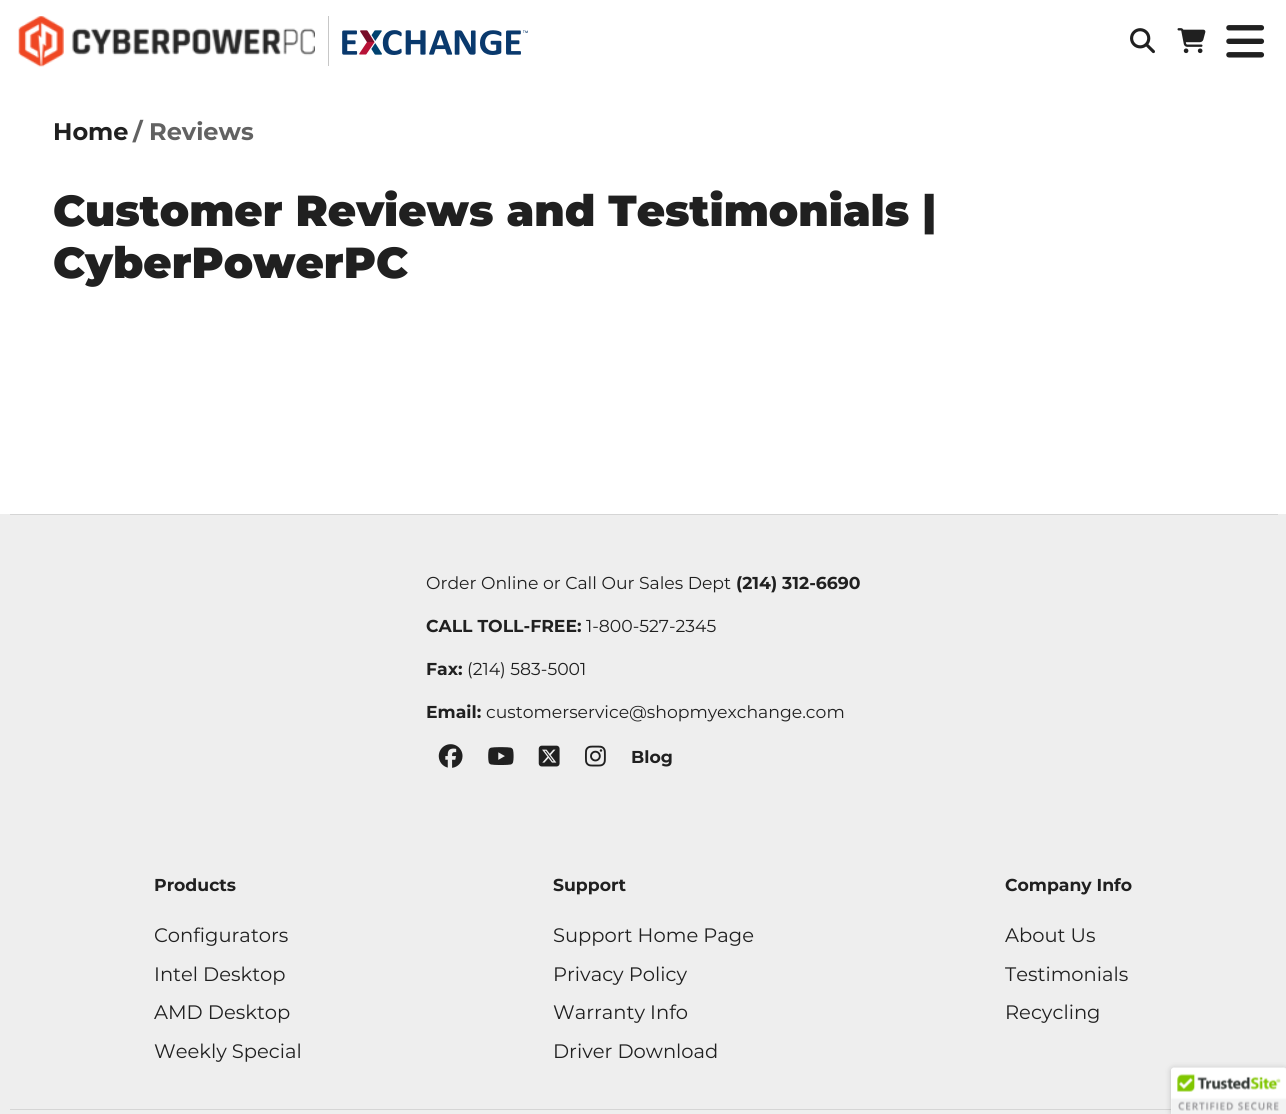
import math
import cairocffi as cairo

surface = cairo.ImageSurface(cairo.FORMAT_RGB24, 1286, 1114)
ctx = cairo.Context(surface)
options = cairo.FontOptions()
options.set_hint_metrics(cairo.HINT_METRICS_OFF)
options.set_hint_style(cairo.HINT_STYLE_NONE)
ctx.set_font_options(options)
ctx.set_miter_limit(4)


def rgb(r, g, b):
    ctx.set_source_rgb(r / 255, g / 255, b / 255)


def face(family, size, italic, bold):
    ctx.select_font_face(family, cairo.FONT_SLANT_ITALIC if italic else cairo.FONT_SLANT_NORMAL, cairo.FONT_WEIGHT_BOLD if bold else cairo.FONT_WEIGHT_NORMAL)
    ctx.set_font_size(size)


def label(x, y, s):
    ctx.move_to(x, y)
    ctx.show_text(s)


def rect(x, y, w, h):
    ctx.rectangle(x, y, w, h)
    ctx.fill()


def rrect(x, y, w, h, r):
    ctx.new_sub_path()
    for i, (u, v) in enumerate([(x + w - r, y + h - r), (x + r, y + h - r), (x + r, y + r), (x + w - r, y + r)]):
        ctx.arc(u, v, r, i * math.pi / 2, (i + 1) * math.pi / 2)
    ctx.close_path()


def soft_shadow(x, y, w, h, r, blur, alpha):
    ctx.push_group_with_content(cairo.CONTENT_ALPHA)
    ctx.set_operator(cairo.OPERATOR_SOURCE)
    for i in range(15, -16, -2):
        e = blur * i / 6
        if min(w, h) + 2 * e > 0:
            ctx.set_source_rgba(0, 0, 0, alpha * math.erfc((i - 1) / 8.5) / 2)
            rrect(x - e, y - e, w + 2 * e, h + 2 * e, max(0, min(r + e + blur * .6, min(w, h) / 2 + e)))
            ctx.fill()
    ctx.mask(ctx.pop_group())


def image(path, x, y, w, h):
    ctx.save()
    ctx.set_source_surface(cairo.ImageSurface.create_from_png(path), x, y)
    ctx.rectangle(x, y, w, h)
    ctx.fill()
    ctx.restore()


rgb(255, 255, 255)
ctx.paint()
image('image0.png', 18, 16, 297, 51)
rgb(199, 199, 199)
rect(328, 16, 1, 50)
image('image1.png', 342, 30, 186, 25)
image('image2.png', 1130, 28, 25, 26)
image('image3.png', 1177, 28, 29, 26)
image('image4.png', 1226, 25, 39, 33)
face('Montserrat', 24, 0, 1)
rgb(32, 32, 32)
label(53, 140, 'Home')
rgb(98, 98, 98)
label(133, 140, '/')
label(149, 140, 'Reviews')
face('Montserrat Black', 43.4, 0, 0)
rgb(32, 32, 32)
label(53, 226, 'Customer Reviews and Testimonials |')
label(53, 278, 'CyberPowerPC')
rgb(238, 238, 238)
rect(0, 514, 1286, 600)
rgb(213, 213, 213)
rect(10, 514, 1268, 1)
face('Montserrat', 17.25, 0, 0)
rgb(32, 32, 32)
label(426, 589, 'Order Online or Call Our Sales Dept')
face('Montserrat', 17.25, 0, 1)
label(736, 589, '(214) 312-6690')
label(426, 632, 'CALL TOLL-FREE:')
face('Montserrat', 17.25, 0, 0)
label(586, 632, '1-800-527-2345')
face('Montserrat', 17.25, 0, 1)
label(426, 675, 'Fax:')
face('Montserrat', 17.25, 0, 0)
label(467, 675, '(214) 583-5001')
face('Montserrat', 17.25, 0, 1)
label(426, 718, 'Email:')
face('Montserrat', 17.25, 0, 0)
label(486, 718, 'customerservice@shopmyexchange.com')
image('image5.png', 438, 744, 25, 24)
image('image6.png', 488, 747, 26, 18)
image('image7.png', 538, 745, 22, 22)
image('image8.png', 585, 745, 21, 22)
face('Montserrat', 17.25, 0, 1)
label(631, 763, 'Blog')
label(154, 891, 'Products')
face('Montserrat', 19.5, 0, 0)
label(154, 942, 'Configurators')
label(154, 981, 'Intel Desktop')
label(154, 1019, 'AMD Desktop')
label(154, 1058, 'Weekly Special')
face('Montserrat', 17.25, 0, 1)
label(553, 891, 'Support')
face('Montserrat', 19.5, 0, 0)
label(553, 942, 'Support Home Page')
label(553, 981, 'Privacy Policy')
label(553, 1019, 'Warranty Info')
label(553, 1058, 'Driver Download')
face('Montserrat', 17.25, 0, 1)
label(1005, 891, 'Company Info')
face('Montserrat', 19.5, 0, 0)
label(1005, 942, 'About Us')
label(1005, 981, 'Testimonials')
label(1005, 1019, 'Recycling')
rgb(213, 213, 213)
rect(10, 1109, 1161, 1)
rgb(0, 0, 0)
soft_shadow(1171, 1068, 115, 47, 2.5, 3, 0.2)
rgb(255, 255, 255)
ctx.new_path()
ctx.move_to(1173.5, 1068)
ctx.line_to(1286, 1068)
ctx.line_to(1286, 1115)
ctx.line_to(1171, 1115)
ctx.line_to(1171, 1070.5)
ctx.curve_to(1171, 1069, 1172, 1068, 1173.5, 1068)
ctx.close_path()
ctx.fill()
image('image9.png', 1171, 1067, 115, 47)
surface.write_to_png('render.png')
